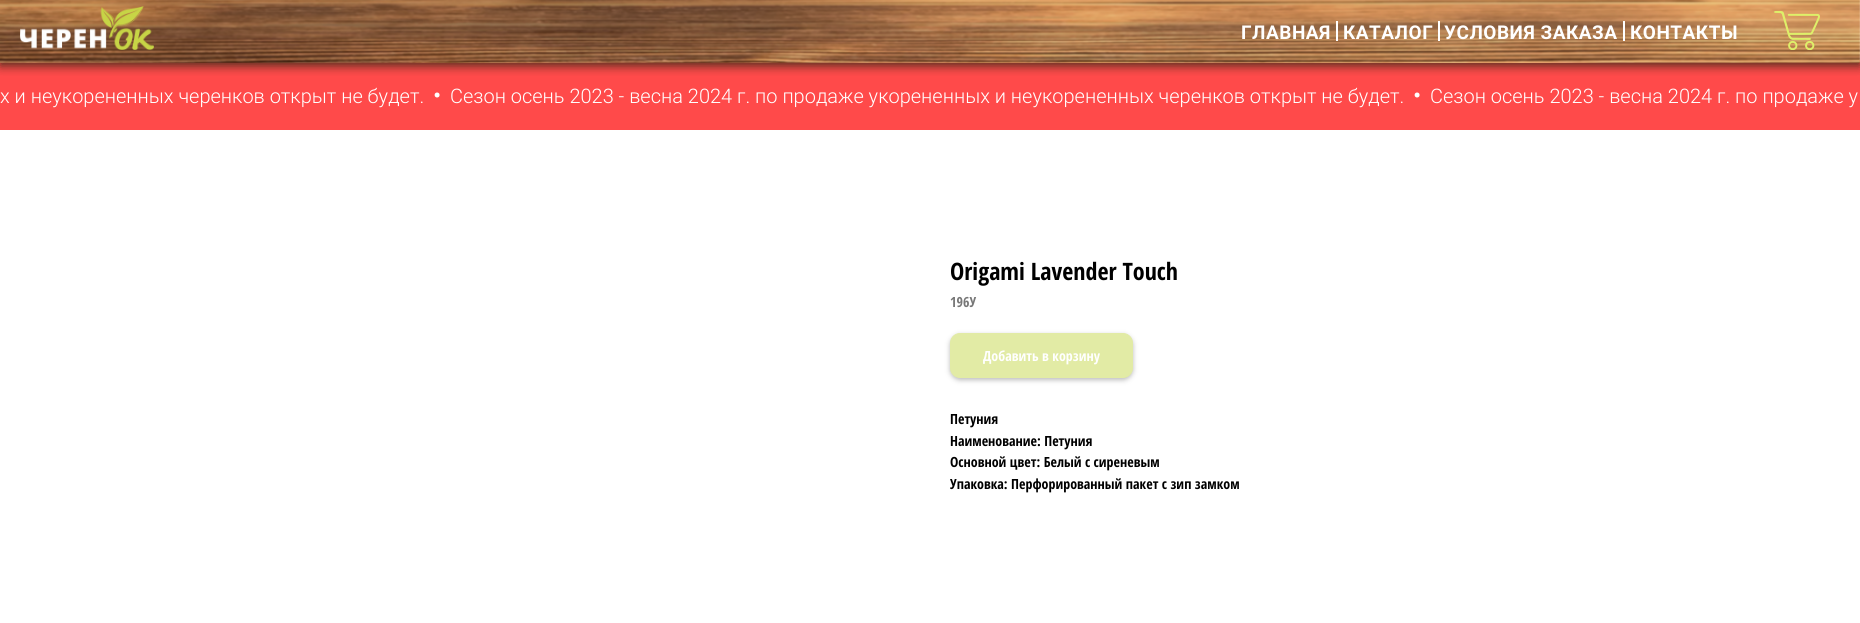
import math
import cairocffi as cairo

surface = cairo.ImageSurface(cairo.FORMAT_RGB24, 1860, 623)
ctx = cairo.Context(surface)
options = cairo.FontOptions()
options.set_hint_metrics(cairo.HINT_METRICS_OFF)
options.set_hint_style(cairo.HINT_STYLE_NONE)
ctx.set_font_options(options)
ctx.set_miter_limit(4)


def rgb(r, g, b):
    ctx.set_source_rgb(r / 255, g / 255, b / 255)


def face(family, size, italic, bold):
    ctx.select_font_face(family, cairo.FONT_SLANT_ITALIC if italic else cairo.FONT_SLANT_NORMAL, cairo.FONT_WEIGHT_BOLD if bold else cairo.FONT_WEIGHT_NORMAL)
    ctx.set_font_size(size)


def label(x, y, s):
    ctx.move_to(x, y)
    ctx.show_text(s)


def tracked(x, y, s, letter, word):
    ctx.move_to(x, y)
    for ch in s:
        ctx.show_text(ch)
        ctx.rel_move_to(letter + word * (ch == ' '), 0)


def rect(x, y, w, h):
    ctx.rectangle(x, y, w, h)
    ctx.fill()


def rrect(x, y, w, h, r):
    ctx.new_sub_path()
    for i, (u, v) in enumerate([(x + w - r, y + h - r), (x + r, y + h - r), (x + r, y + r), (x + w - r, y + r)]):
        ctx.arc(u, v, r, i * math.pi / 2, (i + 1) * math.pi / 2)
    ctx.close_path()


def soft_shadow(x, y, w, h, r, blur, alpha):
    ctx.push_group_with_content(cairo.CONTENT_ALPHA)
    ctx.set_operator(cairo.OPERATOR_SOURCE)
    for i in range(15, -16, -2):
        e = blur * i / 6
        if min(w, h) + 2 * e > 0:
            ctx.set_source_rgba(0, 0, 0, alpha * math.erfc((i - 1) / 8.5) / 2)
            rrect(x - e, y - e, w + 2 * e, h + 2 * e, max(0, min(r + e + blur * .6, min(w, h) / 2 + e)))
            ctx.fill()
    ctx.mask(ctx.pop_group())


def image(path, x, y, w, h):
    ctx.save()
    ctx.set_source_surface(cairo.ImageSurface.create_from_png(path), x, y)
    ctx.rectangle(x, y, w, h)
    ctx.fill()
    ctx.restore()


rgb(255, 255, 255)
ctx.paint()
rgb(255, 74, 74)
rect(0, 60, 1860, 70)
image('image0.png', 0, 0, 1860, 63)
ctx.save()
ctx.rectangle(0, 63, 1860, 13)
ctx.clip()
rgb(80, 47, 30)
soft_shadow(0, 3, 1860, 63, 0, 5, 1)
ctx.restore()
image('image1.png', 20, 6, 134, 44)
face('Roboto', 19, 0, 1)
rgb(255, 255, 255)
tracked(1241, 39, 'ГЛАВНАЯ', 0.5, 0)
rect(1336, 21, 2, 20)
tracked(1343, 39, 'КАТАЛОГ', 0.5, 0)
rect(1438, 21, 2, 20)
tracked(1444, 39, 'УСЛОВИЯ ЗАКАЗА', 0.5, 0)
rect(1623, 21, 2, 20)
tracked(1630, 39, 'КОНТАКТЫ', 0.5, 0)
image('image2.png', 1774, 11, 46, 39)
face('Roboto Light', 20, 0, 0)
label(0, 103, 'х и неукорененных черенков открыт не будет.')
ctx.new_path()
ctx.arc(437.1, 95, 2.5, 0, 2 * math.pi)
ctx.fill()
label(450, 103, 'Cезон осень 2023 - весна 2024 г. по продаже укорененных и неукорененных черенков открыт не будет.')
ctx.new_path()
ctx.arc(1417.1, 95, 2.5, 0, 2 * math.pi)
ctx.fill()
label(1430, 103, 'Cезон осень 2023 - весна 2024 г. по продаже у')
face('Open Sans Condensed', 24, 0, 1)
rgb(0, 0, 0)
label(950, 280, 'Origami Lavender Touch')
face('Open Sans Condensed', 14, 0, 1)
rgb(119, 119, 119)
label(950, 307, '196У')
rgb(187, 187, 187)
soft_shadow(950, 335, 183, 45, 10, 2.5, 1)
rgb(226, 235, 165)
rrect(950.5, 333.5, 182, 44, 9.5)
ctx.fill_preserve()
ctx.set_line_width(1)
ctx.stroke()
rgb(255, 255, 255)
label(983, 361, 'Добавить в корзину')
rgb(0, 0, 0)
label(950, 424, 'Петуния')
label(950, 446, 'Наименование: Петуния')
label(950, 467, 'Основной цвет: Белый с сиреневым')
label(950, 489, 'Упаковка: Перфорированный пакет с зип замком')
surface.write_to_png('render.png')
